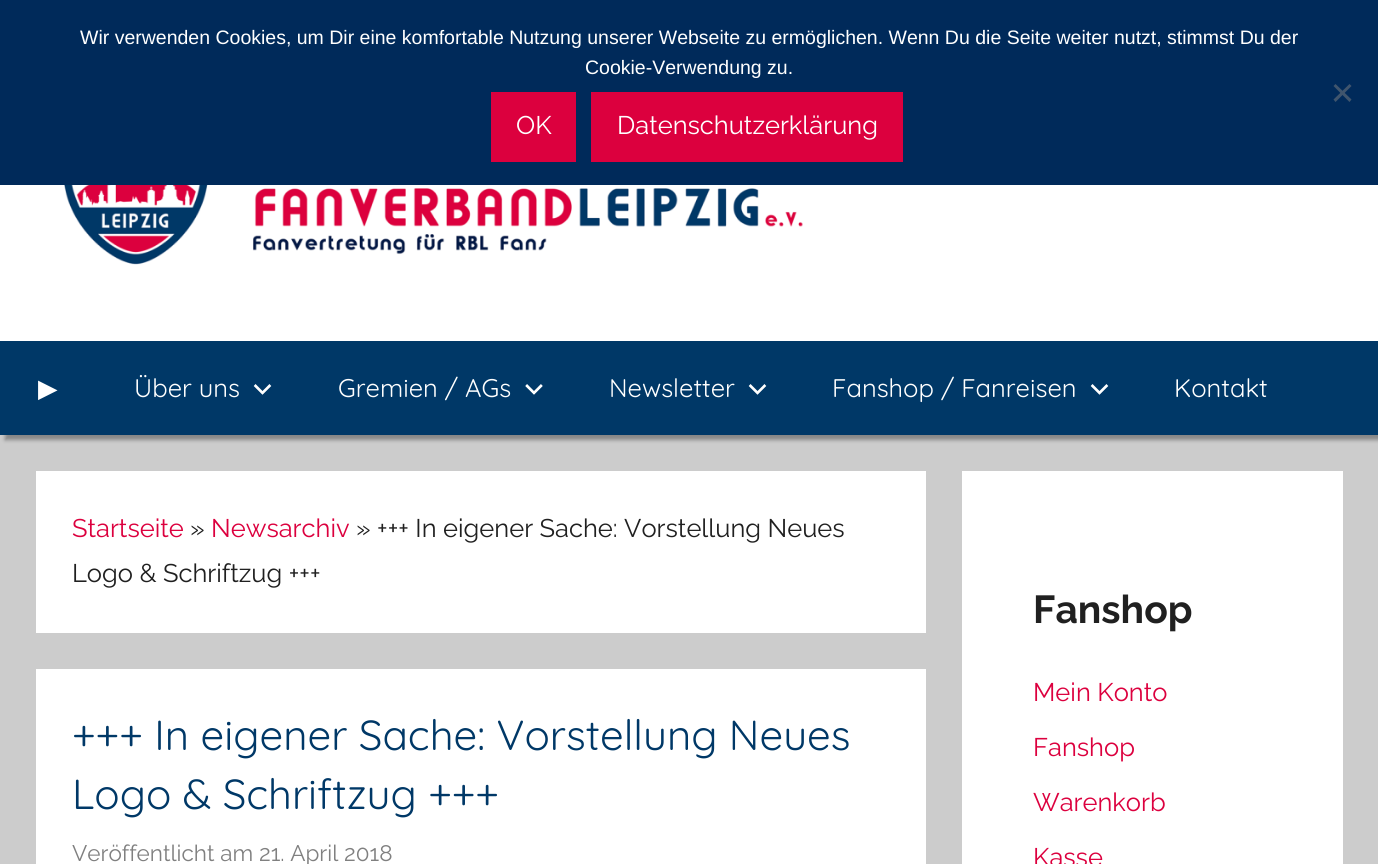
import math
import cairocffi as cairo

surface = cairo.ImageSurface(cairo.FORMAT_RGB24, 1378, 864)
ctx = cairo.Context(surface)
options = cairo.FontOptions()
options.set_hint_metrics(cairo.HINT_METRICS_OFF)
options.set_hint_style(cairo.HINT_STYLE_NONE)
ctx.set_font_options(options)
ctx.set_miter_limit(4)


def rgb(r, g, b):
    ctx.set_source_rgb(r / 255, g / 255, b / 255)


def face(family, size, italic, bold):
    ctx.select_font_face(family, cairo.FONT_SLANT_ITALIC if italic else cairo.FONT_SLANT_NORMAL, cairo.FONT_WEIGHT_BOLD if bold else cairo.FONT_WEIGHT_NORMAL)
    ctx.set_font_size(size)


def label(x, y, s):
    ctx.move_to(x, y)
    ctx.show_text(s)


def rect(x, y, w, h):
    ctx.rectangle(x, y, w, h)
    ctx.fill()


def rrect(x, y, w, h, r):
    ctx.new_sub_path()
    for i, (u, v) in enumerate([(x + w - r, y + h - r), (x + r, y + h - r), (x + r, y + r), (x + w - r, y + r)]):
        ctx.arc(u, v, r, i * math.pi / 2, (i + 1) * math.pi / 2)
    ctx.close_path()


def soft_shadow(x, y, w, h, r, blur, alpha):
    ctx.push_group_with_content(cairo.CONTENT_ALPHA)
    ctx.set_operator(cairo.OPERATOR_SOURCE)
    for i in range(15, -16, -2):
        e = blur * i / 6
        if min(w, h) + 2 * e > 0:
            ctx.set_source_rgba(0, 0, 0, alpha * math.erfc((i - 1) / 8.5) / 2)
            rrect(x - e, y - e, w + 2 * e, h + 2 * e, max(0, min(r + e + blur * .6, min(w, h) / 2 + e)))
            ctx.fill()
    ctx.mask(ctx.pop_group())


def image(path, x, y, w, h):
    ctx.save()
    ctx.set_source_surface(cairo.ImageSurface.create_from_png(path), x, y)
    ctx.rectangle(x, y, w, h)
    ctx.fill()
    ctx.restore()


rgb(204, 204, 204)
ctx.paint()
rgb(0, 42, 90)
rect(0, 0, 1378, 185)
face('Liberation Sans', 19.5, 0, 0)
rgb(255, 255, 255)
label(80, 44, 'Wir verwenden Cookies, um Dir eine komfortable Nutzung unserer Webseite zu ermöglichen. Wenn Du die Seite weiter nutzt, stimmst Du der')
label(585, 74, 'Cookie-Verwendung zu.')
rgb(64, 85, 109)
ctx.new_path()
ctx.move_to(1349.5, 84)
ctx.line_to(1351.5, 86)
ctx.line_to(1335.5, 102)
ctx.line_to(1333.5, 99.5)
ctx.close_path()
ctx.fill()
ctx.new_path()
ctx.move_to(1333.5, 86)
ctx.line_to(1335.5, 84)
ctx.line_to(1351.5, 99.5)
ctx.line_to(1349.5, 102)
ctx.close_path()
ctx.fill()
rgb(220, 0, 62)
rect(491, 92, 85, 70)
face('Raleway', 25.5, 0, 0)
rgb(255, 255, 255)
label(516, 134, 'OK')
rgb(220, 0, 62)
rect(591, 92, 312, 70)
rgb(255, 255, 255)
label(617, 134, 'Datenschutzerklärung')
rect(0, 185, 1378, 156)
image('image0.png', 58, 185, 745, 80)
rgb(0, 0, 0)
soft_shadow(5, 345, 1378, 95, 0, 2, 0.34)
rgb(0, 56, 103)
rect(0, 341, 1378, 94)
face('DejaVu Sans', 25.5, 0, 0)
rgb(255, 255, 255)
label(38, 397, '▶')
face('Quicksand', 25.5, 0, 0)
label(134, 397, 'Über uns')
image('image1.png', 253, 384, 19, 11)
label(338, 397, 'Gremien / AGs')
image('image2.png', 525, 384, 18, 11)
label(609, 397, 'Newsletter')
image('image3.png', 748, 384, 19, 11)
label(832, 397, 'Fanshop / Fanreisen')
image('image4.png', 1090, 384, 19, 11)
label(1174, 397, 'Kontakt')
rect(36, 471, 890, 162)
face('Raleway', 25.5, 0, 0)
rgb(220, 0, 62)
label(72, 537, 'Startseite')
rgb(32, 32, 32)
label(190, 537, '»')
rgb(220, 0, 62)
label(211, 537, 'Newsarchiv')
rgb(32, 32, 32)
label(356, 537, '» +++ In eigener Sache: Vorstellung Neues')
label(72, 582, 'Logo & Schriftzug +++')
rgb(255, 255, 255)
rect(36, 669, 890, 195)
face('Quicksand', 42, 0, 0)
rgb(0, 56, 103)
label(72, 750, '+++ In eigener Sache: Vorstellung Neues')
label(72, 809, 'Logo & Schriftzug +++')
face('Raleway', 22.5, 0, 0)
rgb(128, 128, 128)
label(72, 861, 'Veröffentlicht am 21. April 2018')
rgb(255, 255, 255)
rect(962, 471, 381, 393)
face('Raleway', 39, 0, 1)
rgb(32, 32, 32)
label(1033, 623, 'Fanshop')
face('Raleway', 25.5, 0, 0)
rgb(220, 0, 62)
label(1033, 701, 'Mein Konto')
label(1033, 756, 'Fanshop')
label(1033, 811, 'Warenkorb')
label(1033, 866, 'Kasse')
surface.write_to_png('render.png')
